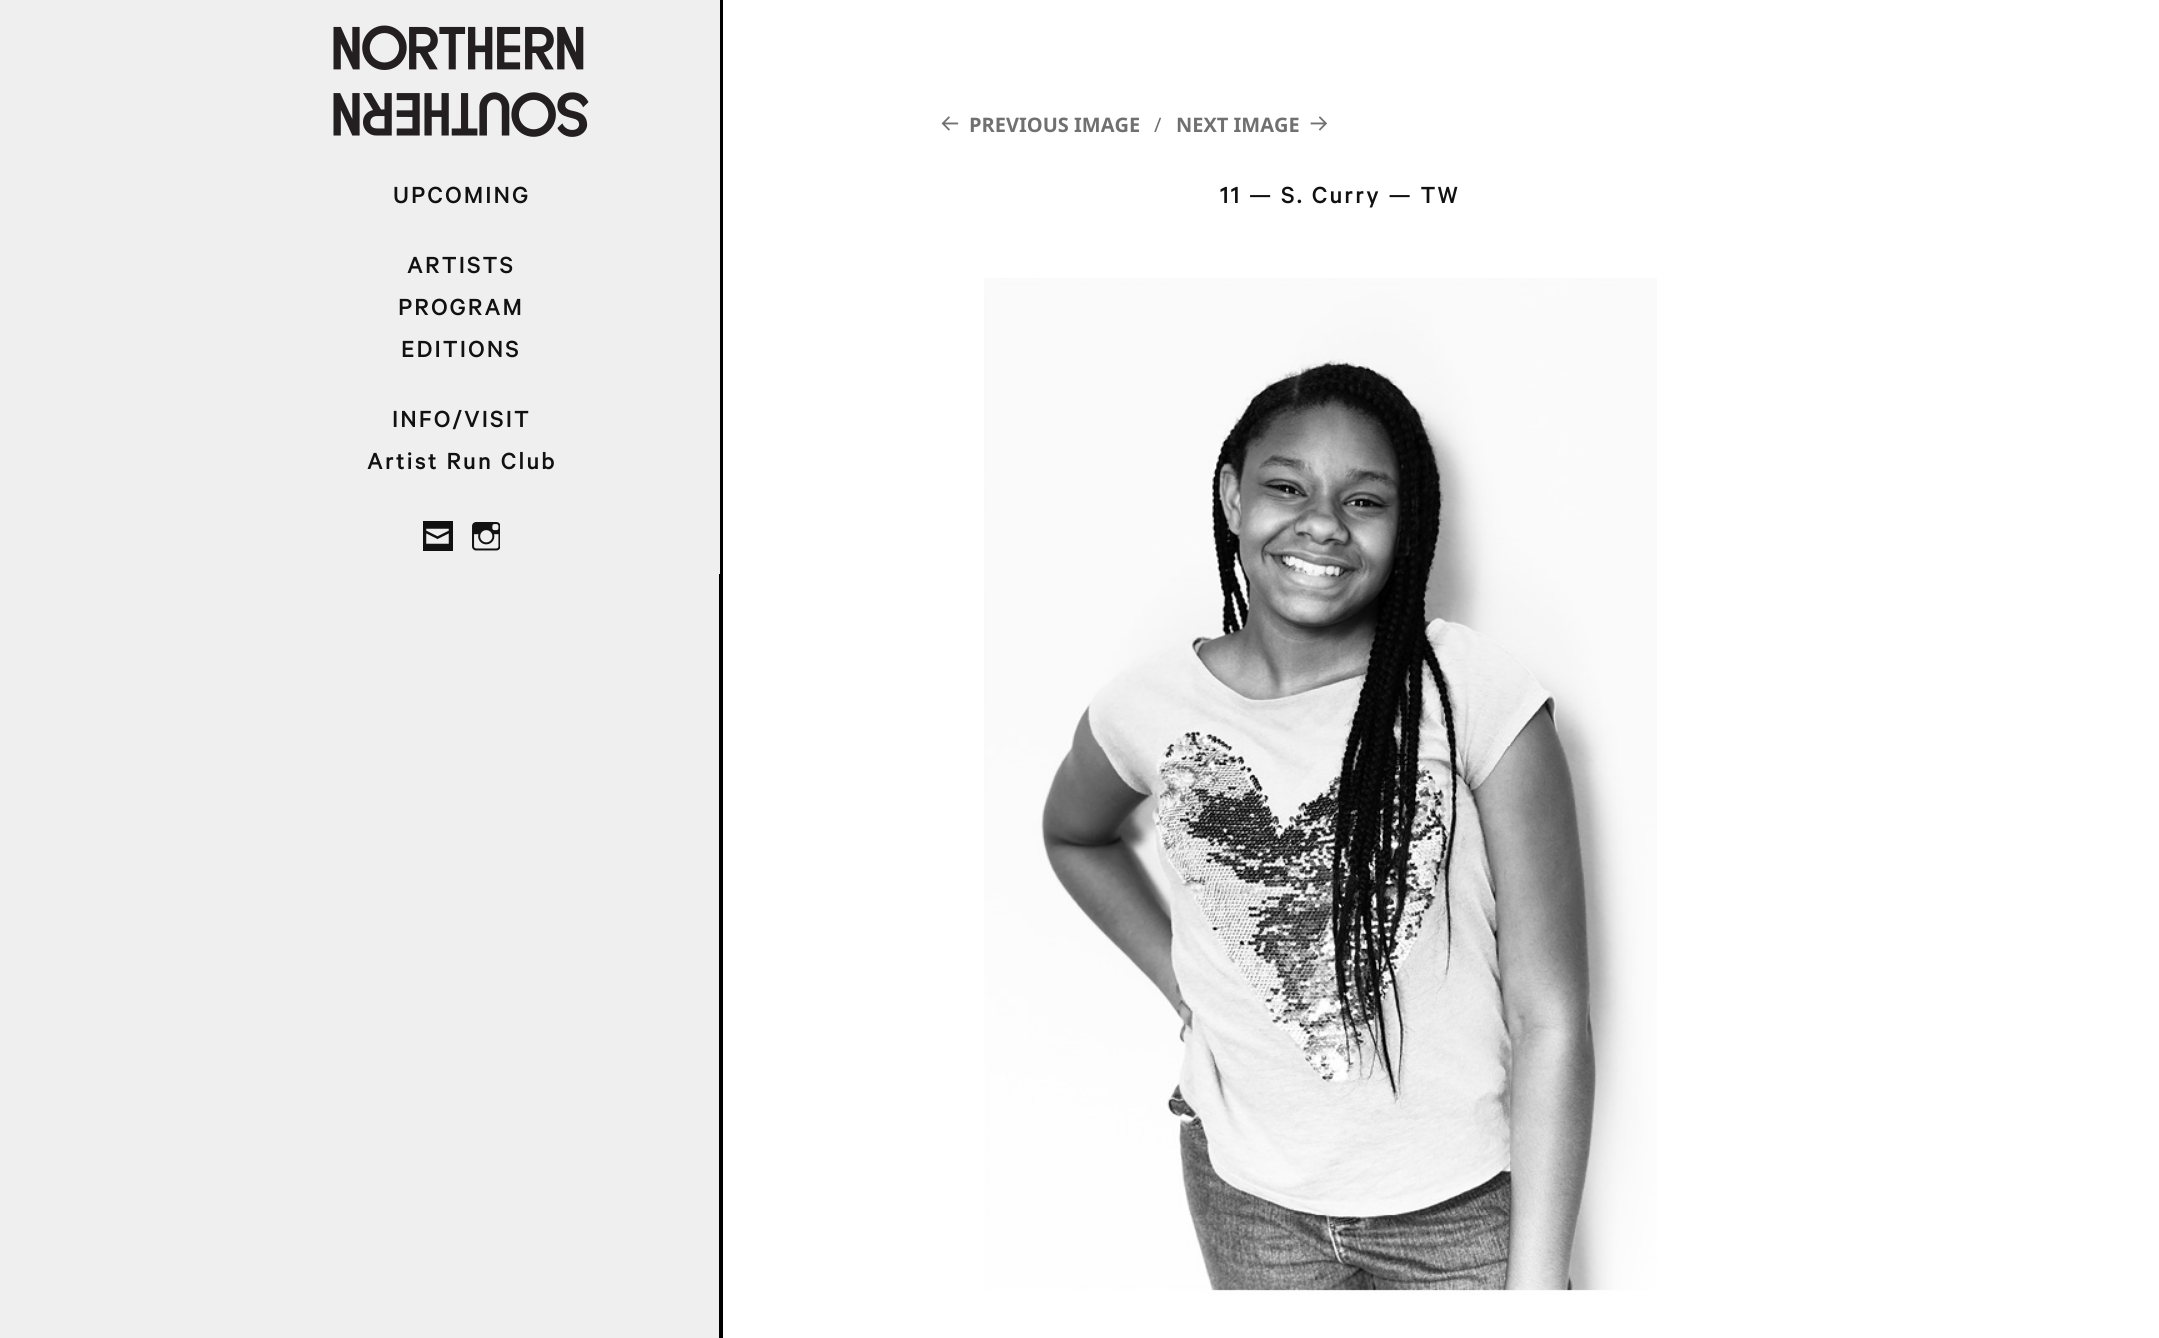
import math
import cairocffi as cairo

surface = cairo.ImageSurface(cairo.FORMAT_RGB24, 2159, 1338)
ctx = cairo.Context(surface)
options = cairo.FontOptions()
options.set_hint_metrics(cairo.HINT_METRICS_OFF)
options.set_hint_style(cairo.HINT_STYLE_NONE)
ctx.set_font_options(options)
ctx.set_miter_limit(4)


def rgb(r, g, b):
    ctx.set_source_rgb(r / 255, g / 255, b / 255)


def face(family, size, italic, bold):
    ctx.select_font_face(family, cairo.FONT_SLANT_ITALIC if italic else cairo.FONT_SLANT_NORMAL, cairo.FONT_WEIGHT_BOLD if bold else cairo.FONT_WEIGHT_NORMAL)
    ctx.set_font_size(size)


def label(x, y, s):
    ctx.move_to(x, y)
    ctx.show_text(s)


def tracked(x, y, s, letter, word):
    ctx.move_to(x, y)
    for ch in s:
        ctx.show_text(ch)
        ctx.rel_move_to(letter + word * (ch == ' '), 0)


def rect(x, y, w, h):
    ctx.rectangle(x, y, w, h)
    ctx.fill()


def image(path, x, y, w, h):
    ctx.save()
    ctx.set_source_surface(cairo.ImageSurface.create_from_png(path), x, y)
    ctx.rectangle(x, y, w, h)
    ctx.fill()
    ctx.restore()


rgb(255, 255, 255)
ctx.paint()
rgb(239, 239, 239)
rect(0, 0, 719, 1338)
rgb(0, 0, 0)
rect(719, 0, 4, 1338)
image('image0.png', 941, 116, 18, 15)
face('Noto Sans', 20, 0, 1)
rgb(112, 112, 112)
label(969, 132, 'PREVIOUS IMAGE')
face('Noto Sans', 20, 0, 0)
label(1154, 132, '∕')
face('Noto Sans', 20, 0, 1)
label(1176, 132, 'NEXT IMAGE')
image('image1.png', 1310, 116, 18, 15)
face('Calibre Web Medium', 26.25, 0, 0)
rgb(17, 17, 17)
tracked(1220, 203, '11 — S. Curry — TW', 2, 0)
image('image2.png', 984, 278, 673, 1017)
rgb(239, 239, 239)
rect(719, 0, 1, 574)
image('image3.png', 333, 25, 256, 112)
rgb(17, 17, 17)
tracked(393, 203, 'UPCOMING', 2, 0)
tracked(407, 273, 'ARTISTS', 2, 0)
tracked(398, 315, 'PROGRAM', 2, 0)
tracked(401, 357, 'EDITIONS', 2, 0)
tracked(392, 427, 'INFO/VISIT', 2, 0)
tracked(367, 469, 'Artist Run Club', 2, 0)
rect(423, 521, 30, 30)
image('image4.png', 426, 528, 23, 16)
image('image5.png', 472, 522, 28, 29)
surface.write_to_png('render.png')
